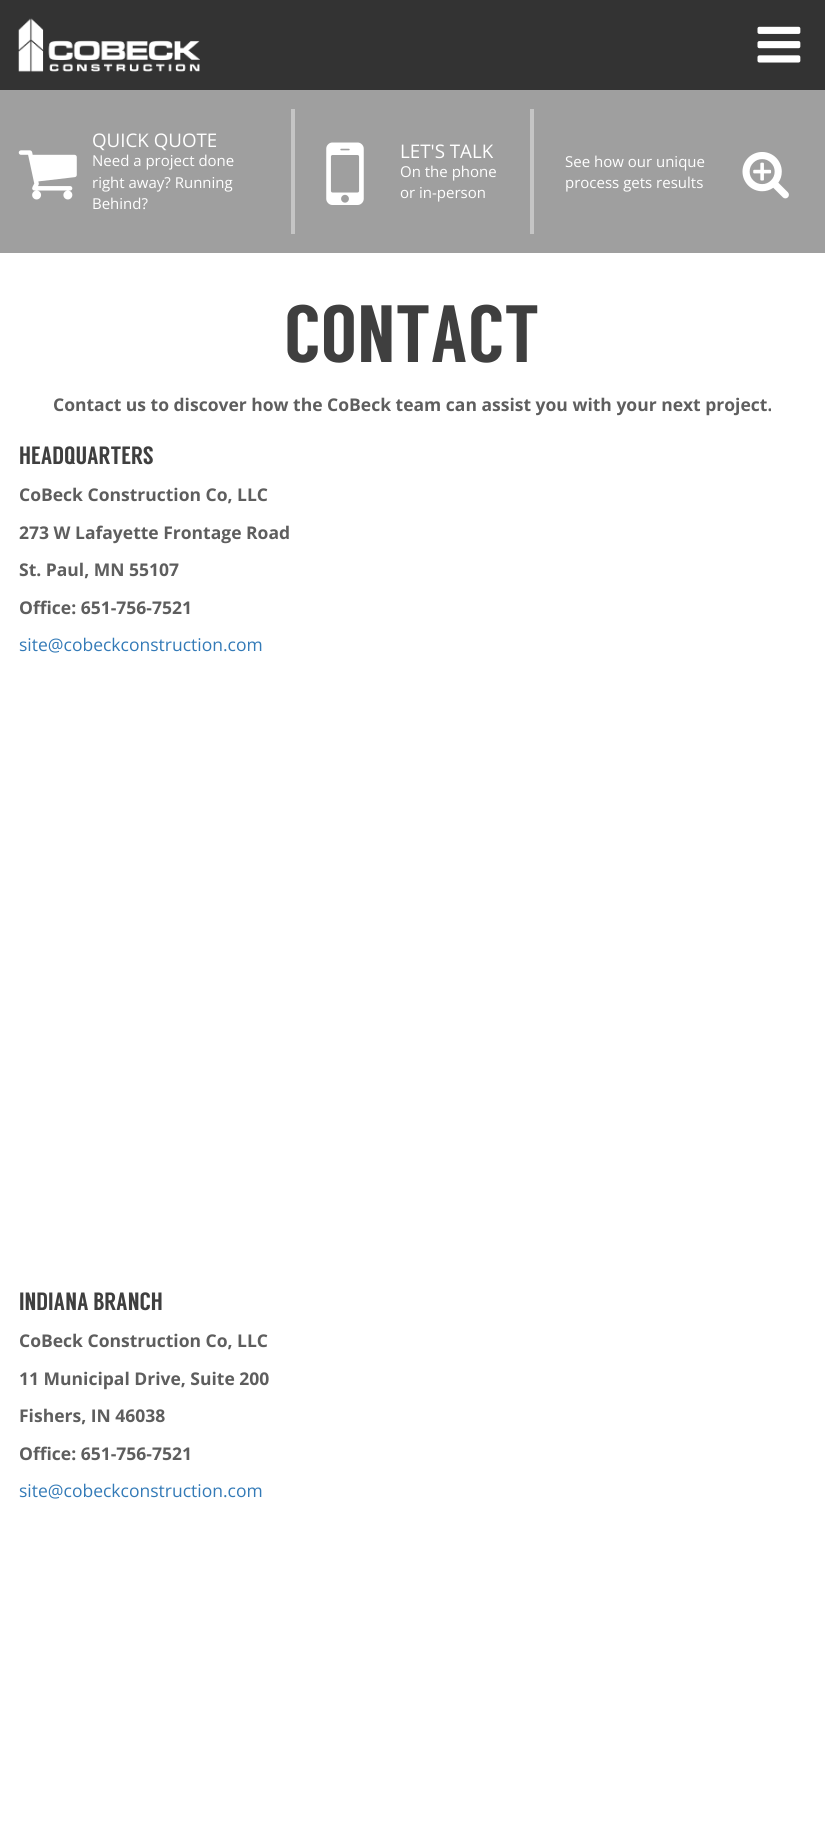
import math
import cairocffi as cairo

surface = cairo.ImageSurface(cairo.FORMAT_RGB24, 825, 1822)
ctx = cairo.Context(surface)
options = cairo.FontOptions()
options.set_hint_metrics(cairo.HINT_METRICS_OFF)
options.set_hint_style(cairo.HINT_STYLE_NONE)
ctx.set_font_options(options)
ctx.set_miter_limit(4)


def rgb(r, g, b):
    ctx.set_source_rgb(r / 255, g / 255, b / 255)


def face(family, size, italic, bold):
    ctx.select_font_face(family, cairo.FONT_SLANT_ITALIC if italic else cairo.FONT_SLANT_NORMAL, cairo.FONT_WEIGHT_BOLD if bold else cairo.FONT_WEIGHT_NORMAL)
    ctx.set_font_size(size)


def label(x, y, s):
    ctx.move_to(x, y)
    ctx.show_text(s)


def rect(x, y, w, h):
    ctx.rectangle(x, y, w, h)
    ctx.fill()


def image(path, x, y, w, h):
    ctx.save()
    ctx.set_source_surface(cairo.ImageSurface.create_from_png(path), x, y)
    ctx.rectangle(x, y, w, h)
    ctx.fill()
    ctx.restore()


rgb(255, 255, 255)
ctx.paint()
rgb(51, 51, 51)
rect(0, 0, 825, 90)
image('image0.png', 18, 18, 182, 54)
image('image1.png', 757, 26, 44, 37)
rgb(159, 159, 159)
rect(0, 90, 825, 163)
image('image2.png', 18, 150, 59, 50)
face('Open Sans', 18.75, 0, 0)
rgb(255, 255, 255)
label(92, 147, 'QUICK QUOTE')
face('Open Sans', 15, 0, 0)
label(92, 166, 'Need a project done')
label(92, 188, 'right away? Running')
label(92, 209, 'Behind?')
rgb(197, 197, 197)
rect(291, 109, 4, 125)
image('image3.png', 326, 142, 38, 63)
face('Open Sans', 18.75, 0, 0)
rgb(255, 255, 255)
label(400, 158, 'LET\'S TALK')
face('Open Sans', 15, 0, 0)
label(400, 177, 'On the phone')
label(400, 198, 'or in-person')
rgb(197, 197, 197)
rect(530, 109, 4, 125)
rgb(255, 255, 255)
label(565, 167, 'See how our unique')
label(565, 188, 'process gets results')
image('image4.png', 742, 152, 47, 47)
face('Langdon', 81, 0, 0)
rgb(63, 63, 63)
label(284, 362, 'CONTACT')
face('Open Sans', 17.5, 0, 1)
rgb(94, 94, 94)
label(53, 411, 'Contact us to discover how the CoBeck team can assist you with your next project.')
face('Langdon', 25, 0, 0)
rgb(63, 63, 63)
label(19, 464, 'HEADQUARTERS')
face('Open Sans', 17.5, 0, 1)
rgb(94, 94, 94)
label(19, 501, 'CoBeck Construction Co, LLC')
label(19, 539, '273 W Lafayette Frontage Road')
label(19, 576, 'St. Paul, MN 55107')
label(19, 614, 'Office: 651-756-7521')
face('Open Sans', 17.5, 0, 0)
rgb(51, 122, 183)
label(19, 651, 'site@cobeckconstruction.com')
face('Langdon', 25, 0, 0)
rgb(63, 63, 63)
label(19, 1310, 'INDIANA BRANCH')
face('Open Sans', 17.5, 0, 1)
rgb(94, 94, 94)
label(19, 1347, 'CoBeck Construction Co, LLC')
label(19, 1385, '11 Municipal Drive, Suite 200')
label(19, 1422, 'Fishers, IN 46038')
label(19, 1460, 'Office: 651-756-7521')
face('Open Sans', 17.5, 0, 0)
rgb(51, 122, 183)
label(19, 1497, 'site@cobeckconstruction.com')
surface.write_to_png('render.png')
